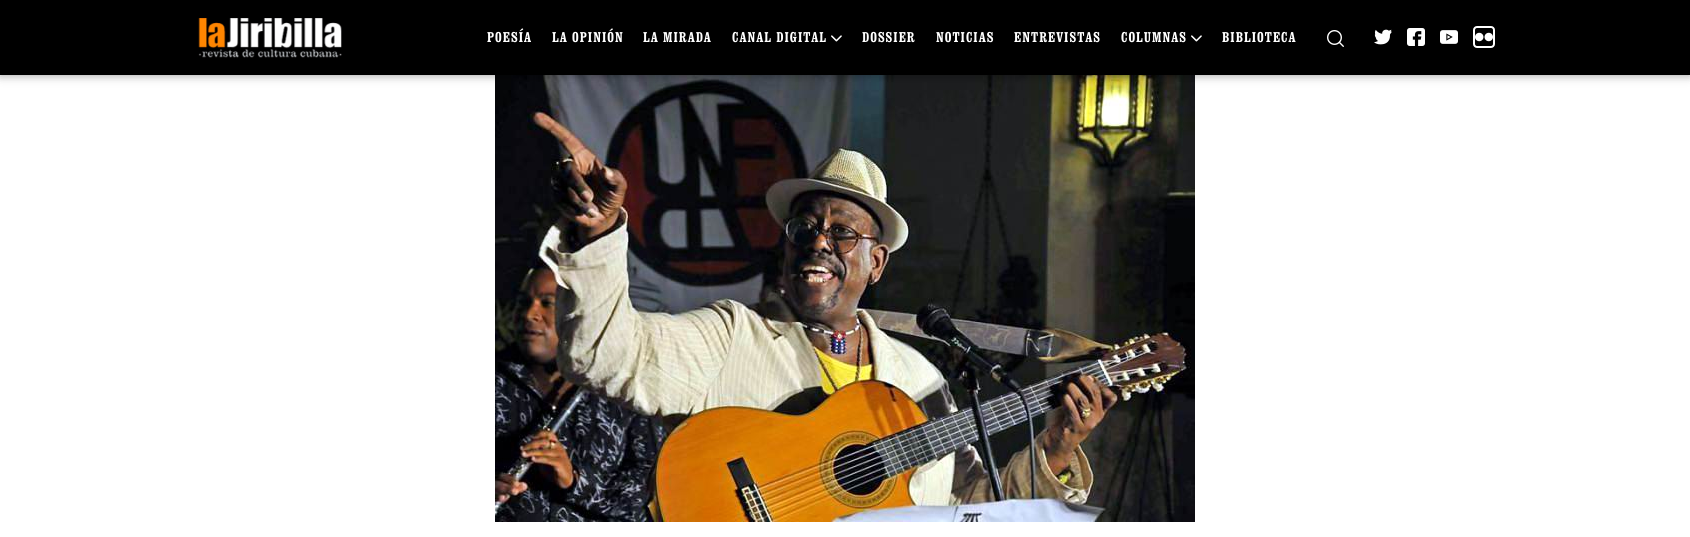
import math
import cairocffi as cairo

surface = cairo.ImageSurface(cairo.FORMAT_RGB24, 1690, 537)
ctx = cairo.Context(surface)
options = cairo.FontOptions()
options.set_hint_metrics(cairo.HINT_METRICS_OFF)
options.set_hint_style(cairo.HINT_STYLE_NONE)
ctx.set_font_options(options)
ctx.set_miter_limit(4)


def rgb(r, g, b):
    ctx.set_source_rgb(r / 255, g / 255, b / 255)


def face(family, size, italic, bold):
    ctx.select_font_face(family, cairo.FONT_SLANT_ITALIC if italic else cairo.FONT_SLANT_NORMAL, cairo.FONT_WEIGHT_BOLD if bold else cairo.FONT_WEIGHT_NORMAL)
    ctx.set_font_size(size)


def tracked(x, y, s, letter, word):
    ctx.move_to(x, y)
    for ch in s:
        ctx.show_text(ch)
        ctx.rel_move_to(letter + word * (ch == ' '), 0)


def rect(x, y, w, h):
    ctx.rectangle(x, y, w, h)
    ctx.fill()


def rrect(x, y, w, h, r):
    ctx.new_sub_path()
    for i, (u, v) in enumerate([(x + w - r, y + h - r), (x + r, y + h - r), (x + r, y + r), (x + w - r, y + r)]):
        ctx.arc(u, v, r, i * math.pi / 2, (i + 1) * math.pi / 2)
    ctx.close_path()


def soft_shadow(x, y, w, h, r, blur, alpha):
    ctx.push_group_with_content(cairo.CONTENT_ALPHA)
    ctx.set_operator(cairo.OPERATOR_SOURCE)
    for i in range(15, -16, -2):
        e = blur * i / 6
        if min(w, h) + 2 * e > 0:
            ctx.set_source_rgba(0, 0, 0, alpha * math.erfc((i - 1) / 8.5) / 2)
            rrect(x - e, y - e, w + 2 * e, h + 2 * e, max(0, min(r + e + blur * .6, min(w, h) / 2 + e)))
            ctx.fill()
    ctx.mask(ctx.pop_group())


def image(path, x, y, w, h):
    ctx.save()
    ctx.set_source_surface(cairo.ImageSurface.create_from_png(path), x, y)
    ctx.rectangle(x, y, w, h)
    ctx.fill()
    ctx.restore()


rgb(255, 255, 255)
ctx.paint()
image('image7.png', 495, 75, 700, 447)
rgb(0, 0, 0)
soft_shadow(0, 0, 1690, 75, 0, 5, 0.4)
rgb(0, 0, 0)
rect(0, 0, 1690, 75)
image('image0.png', 198, 18, 144, 40)
face('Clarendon', 14, 0, 1)
rgb(255, 255, 255)
tracked(487, 42, 'POESÍA', 1, 0)
tracked(552, 42, 'LA OPINIÓN', 1, 0)
tracked(643, 42, 'LA MIRADA', 1, 0)
tracked(732, 42, 'CANAL DIGITAL', 1, 0)
image('image1.png', 831, 35, 11, 7)
tracked(862, 42, 'DOSSIER', 1, 0)
tracked(936, 42, 'NOTICIAS', 1, 0)
tracked(1014, 42, 'ENTREVISTAS', 1, 0)
tracked(1121, 42, 'COLUMNAS', 1, 0)
image('image1.png', 1191, 35, 11, 7)
tracked(1222, 42, 'BIBLIOTECA', 1, 0)
image('image2.png', 1327, 30, 17, 17)
image('image3.png', 1374, 29, 18, 16)
image('image4.png', 1407, 28, 18, 18)
image('image5.png', 1440, 30, 18, 14)
rrect(1474, 27, 20, 20, 3)
ctx.stroke()
image('image6.png', 1475, 32, 18, 10)
surface.write_to_png('render.png')
